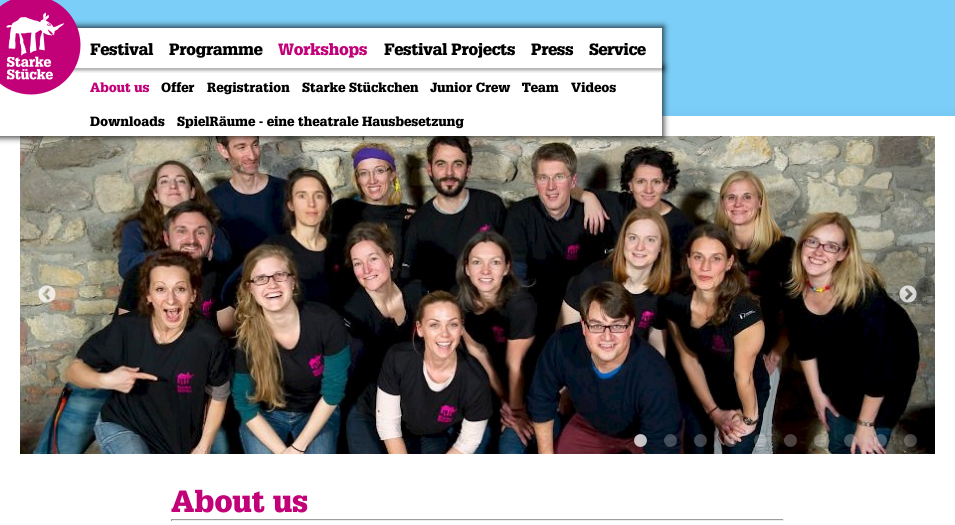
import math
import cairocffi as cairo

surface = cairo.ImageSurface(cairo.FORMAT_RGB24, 955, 525)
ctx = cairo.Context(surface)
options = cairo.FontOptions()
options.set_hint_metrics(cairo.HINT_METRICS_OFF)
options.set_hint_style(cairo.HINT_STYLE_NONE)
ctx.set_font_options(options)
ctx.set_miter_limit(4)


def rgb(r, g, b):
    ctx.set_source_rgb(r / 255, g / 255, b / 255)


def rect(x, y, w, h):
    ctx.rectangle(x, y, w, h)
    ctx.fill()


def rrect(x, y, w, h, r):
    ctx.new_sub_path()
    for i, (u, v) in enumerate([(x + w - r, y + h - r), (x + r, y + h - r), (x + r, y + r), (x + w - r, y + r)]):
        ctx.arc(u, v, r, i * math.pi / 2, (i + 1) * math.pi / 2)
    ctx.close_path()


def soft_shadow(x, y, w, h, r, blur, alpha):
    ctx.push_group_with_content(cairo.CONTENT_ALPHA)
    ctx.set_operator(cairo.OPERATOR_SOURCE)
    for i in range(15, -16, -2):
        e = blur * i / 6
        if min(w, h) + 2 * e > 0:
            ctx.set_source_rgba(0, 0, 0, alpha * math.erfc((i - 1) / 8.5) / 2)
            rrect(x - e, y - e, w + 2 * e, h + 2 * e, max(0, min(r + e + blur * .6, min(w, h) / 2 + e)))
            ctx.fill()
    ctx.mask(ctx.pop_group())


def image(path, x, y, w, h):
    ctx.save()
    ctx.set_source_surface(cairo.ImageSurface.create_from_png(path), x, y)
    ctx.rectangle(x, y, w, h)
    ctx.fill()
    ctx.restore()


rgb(255, 255, 255)
ctx.paint()
gradient = cairo.LinearGradient(478, 525, 478, 0)
gradient.add_color_stop_rgba(0, 0.2, 0.122, 0.541, 1)
gradient.add_color_stop_rgba(0.8, 0.478, 0.808, 0.973, 1)
ctx.set_source(gradient)
rect(0, 0, 955, 116)
rgb(0, 0, 0)
soft_shadow(-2, 26, 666, 44, 0, 3, 0.7)
image('image17.png', 20, 136, 915, 318)
soft_shadow(-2, 66, 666, 72, 0, 3, 0.7)
rgb(255, 255, 255)
rect(74, 28, 588, 40)
rect(0, 73, 662, 63)
image('image3.png', 71, 68, 591, 5)
image('image0.png', 0, 0, 81, 95)
image('image1.png', 90, 43, 64, 13)
image('image2.png', 278, 43, 89, 15)
image('image4.png', 90, 82, 59, 11)
image('image5.png', 161, 82, 34, 11)
image('image6.png', 207, 82, 83, 13)
image('image7.png', 302, 82, 117, 11)
image('image8.png', 430, 82, 81, 11)
image('image9.png', 522, 82, 37, 11)
image('image10.png', 571, 82, 45, 11)
image('image11.png', 90, 116, 75, 11)
image('image12.png', 177, 116, 287, 13)
image('image13.png', 169, 43, 94, 15)
image('image14.png', 384, 43, 131, 15)
image('image15.png', 531, 43, 43, 13)
image('image16.png', 589, 43, 57, 13)
image('image18.png', 38, 285, 18, 18)
image('image19.png', 899, 285, 18, 18)
image('image20.png', 634, 434, 13, 13)
image('image21.png', 664, 434, 13, 13)
image('image22.png', 694, 434, 13, 13)
image('image23.png', 724, 434, 13, 13)
image('image24.png', 754, 434, 13, 13)
image('image25.png', 784, 434, 13, 13)
image('image26.png', 814, 434, 13, 13)
image('image27.png', 844, 434, 13, 13)
image('image28.png', 874, 434, 13, 13)
image('image29.png', 904, 434, 13, 13)
image('image30.png', 171, 489, 137, 24)
rgb(159, 159, 159)
rect(171, 519, 613, 1)
rgb(238, 238, 238)
rect(783, 519, 1, 2)
rect(171, 520, 613, 1)
rgb(159, 159, 159)
rect(171, 519, 1, 2)
surface.write_to_png('render.png')
